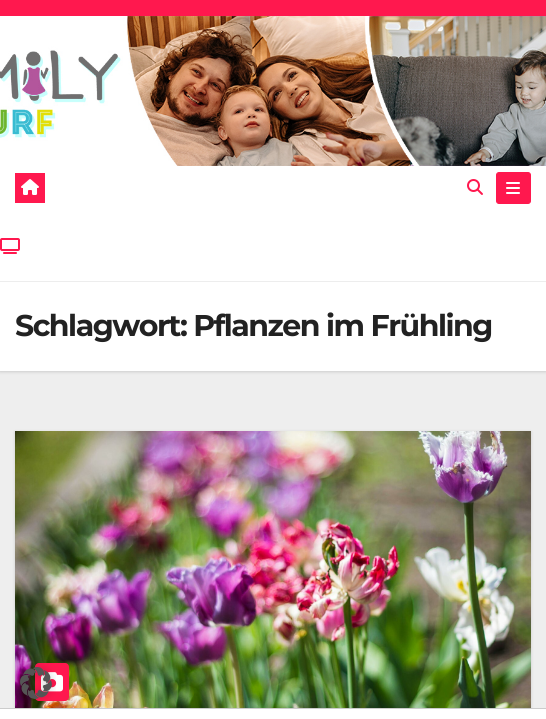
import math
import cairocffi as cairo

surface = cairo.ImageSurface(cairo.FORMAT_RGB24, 546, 719)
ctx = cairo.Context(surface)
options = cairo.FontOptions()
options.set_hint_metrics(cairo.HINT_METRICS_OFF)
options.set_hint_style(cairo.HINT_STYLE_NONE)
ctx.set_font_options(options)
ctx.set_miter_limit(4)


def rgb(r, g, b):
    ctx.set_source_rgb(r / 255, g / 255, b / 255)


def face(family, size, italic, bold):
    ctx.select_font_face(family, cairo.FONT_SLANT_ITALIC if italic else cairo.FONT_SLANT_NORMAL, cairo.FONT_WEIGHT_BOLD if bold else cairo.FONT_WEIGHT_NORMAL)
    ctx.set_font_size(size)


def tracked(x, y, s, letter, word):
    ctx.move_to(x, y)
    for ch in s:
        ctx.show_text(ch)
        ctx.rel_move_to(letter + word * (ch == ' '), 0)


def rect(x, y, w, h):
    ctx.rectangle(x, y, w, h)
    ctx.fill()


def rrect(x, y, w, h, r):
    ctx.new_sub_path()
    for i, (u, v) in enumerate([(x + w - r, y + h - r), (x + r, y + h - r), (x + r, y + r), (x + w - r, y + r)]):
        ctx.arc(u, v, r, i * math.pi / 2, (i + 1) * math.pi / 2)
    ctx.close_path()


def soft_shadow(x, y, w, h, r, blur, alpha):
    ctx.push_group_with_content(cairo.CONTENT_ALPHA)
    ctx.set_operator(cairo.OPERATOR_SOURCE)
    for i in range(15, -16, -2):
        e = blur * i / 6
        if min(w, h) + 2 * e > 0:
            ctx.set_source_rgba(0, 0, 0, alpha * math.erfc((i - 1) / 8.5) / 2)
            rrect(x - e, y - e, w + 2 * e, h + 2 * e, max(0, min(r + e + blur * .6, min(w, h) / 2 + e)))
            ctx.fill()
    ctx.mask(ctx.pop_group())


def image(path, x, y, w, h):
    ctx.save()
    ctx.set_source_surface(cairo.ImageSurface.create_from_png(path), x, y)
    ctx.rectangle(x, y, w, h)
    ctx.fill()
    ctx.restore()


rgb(238, 238, 238)
ctx.paint()
rgb(255, 24, 78)
rect(0, 0, 546, 16)
image('image0.png', 0, 16, 546, 150)
rgb(0, 0, 0)
soft_shadow(0, 282, 546, 90, 0, 1.5, 0.15)
rgb(237, 237, 237)
rect(0, 281, 546, 1)
rgb(255, 255, 255)
rect(0, 166, 546, 115)
rgb(255, 24, 78)
rect(15, 173, 30, 30)
image('image1.png', 21, 179, 18, 16)
image('image2.png', 467, 179, 16, 16)
rrect(496.5, 172.5, 34, 31, 2.5)
ctx.fill_preserve()
ctx.set_line_width(1)
ctx.stroke()
image('image3.png', 506, 182, 14, 12)
image('image4.png', 0, 238, 20, 16)
rgb(255, 255, 255)
rect(0, 282, 546, 89)
face('Montserrat', 30, 0, 1)
rgb(34, 34, 34)
tracked(15, 336, 'Schlagwort: Pflanzen im Frühling', -1.5, 0)
rgb(0, 0, 0)
soft_shadow(15, 432, 516, 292, 0, 1.5, 0.15)
image('image5.png', 15, 431, 516, 277)
rgb(255, 24, 78)
rrect(35, 663, 34, 38, 4)
ctx.fill()
image('image6.png', 41, 672, 22, 20)
image('image7.png', 16, 663, 40, 38)
rgb(255, 255, 255)
rect(0, 709, 546, 10)
rgb(204, 204, 204)
rect(0, 708, 546, 1)
surface.write_to_png('render.png')
